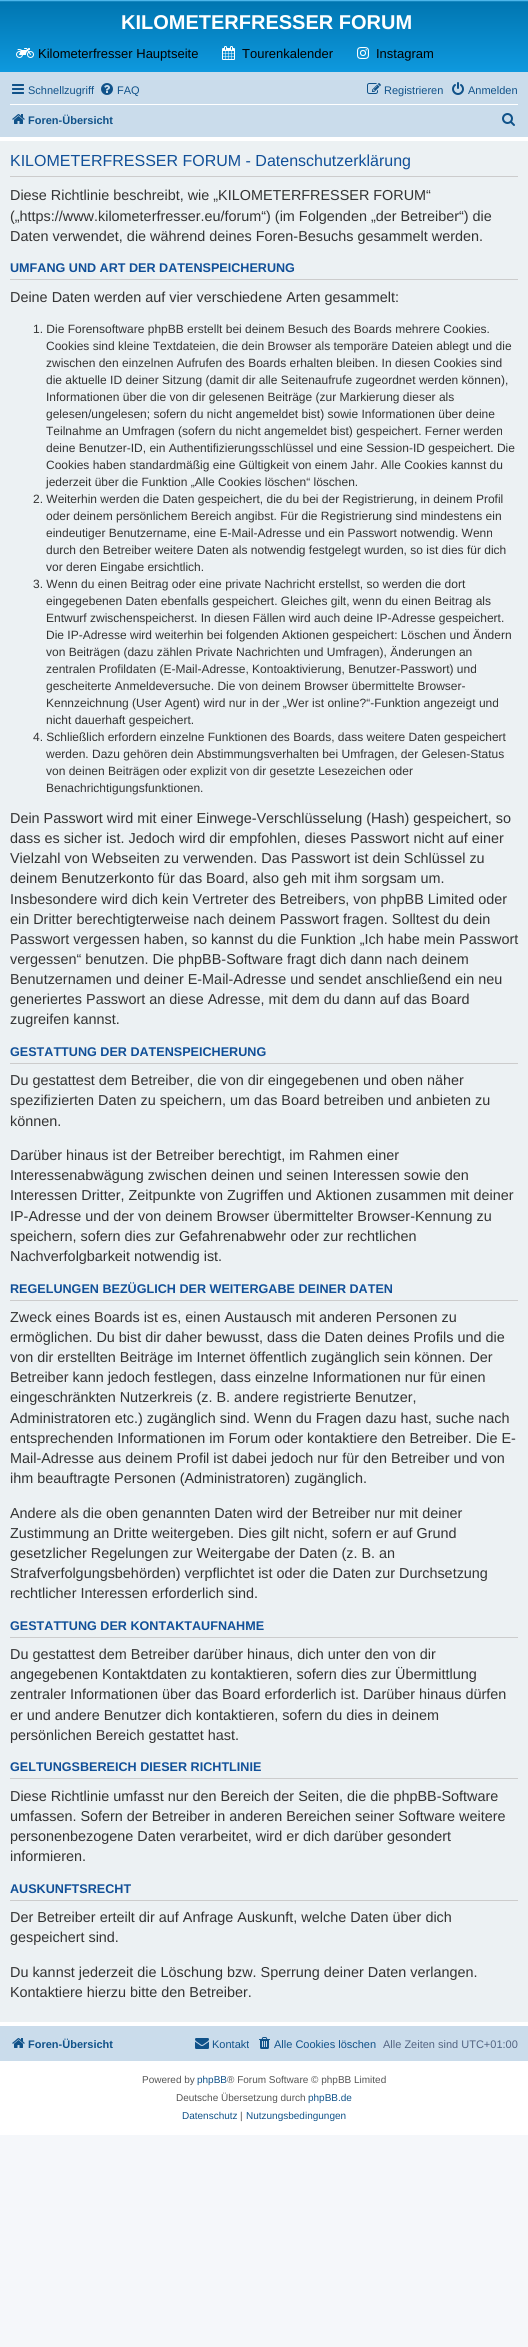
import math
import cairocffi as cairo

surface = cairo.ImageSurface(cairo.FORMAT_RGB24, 528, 2347)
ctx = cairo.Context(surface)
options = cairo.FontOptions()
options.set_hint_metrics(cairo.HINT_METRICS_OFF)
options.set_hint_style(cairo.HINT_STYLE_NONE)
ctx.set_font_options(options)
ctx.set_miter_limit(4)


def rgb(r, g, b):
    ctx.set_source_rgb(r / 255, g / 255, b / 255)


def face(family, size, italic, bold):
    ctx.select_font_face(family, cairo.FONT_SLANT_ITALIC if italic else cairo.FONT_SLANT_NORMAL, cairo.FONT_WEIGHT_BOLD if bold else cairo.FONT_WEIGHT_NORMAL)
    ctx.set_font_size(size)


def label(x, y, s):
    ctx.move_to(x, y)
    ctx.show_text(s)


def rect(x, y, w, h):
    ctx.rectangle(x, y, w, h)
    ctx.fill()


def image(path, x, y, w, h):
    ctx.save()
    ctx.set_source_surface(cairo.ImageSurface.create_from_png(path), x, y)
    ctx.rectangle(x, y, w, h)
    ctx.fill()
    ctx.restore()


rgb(245, 247, 250)
ctx.paint()
rgb(255, 255, 255)
rect(0, 137, 528, 1998)
gradient = cairo.LinearGradient(264, 0, 264, 92)
gradient.add_color_stop_rgba(0, 0.416, 0.808, 1, 1)
gradient.add_color_stop_rgba(0.02, 0, 0.463, 0.694, 1)
gradient.add_color_stop_rgba(1, 0.071, 0.639, 0.922, 1)
ctx.set_source(gradient)
rect(0, 0, 528, 72)
face('Liberation Sans', 20, 0, 1)
rgb(255, 255, 255)
label(121, 29, 'KILOMETERFRESSER FORUM')
image('image0.png', 16, 48, 18, 10)
face('Liberation Sans', 13, 0, 0)
rgb(0, 0, 0)
label(38, 58, 'Kilometerfresser Hauptseite')
image('image1.png', 222, 46, 13, 14)
label(242, 58, 'Tourenkalender')
image('image2.png', 357, 47, 12, 12)
label(376, 58, 'Instagram')
rgb(202, 220, 235)
rect(0, 72, 528, 65)
image('image3.png', 12, 84, 12, 10)
face('Liberation Sans', 11, 0, 0)
rgb(16, 82, 137)
label(28, 94, 'Schnellzugriff')
image('image4.png', 101, 83, 12, 12)
label(117, 94, 'FAQ')
image('image5.png', 367, 83, 14, 11)
label(384, 94, 'Registrieren')
image('image6.png', 452, 82, 12, 13)
label(468, 94, 'Anmelden')
rgb(255, 255, 255)
rect(10, 104, 508, 1)
image('image7.png', 12, 114, 13, 10)
face('Liberation Sans', 11, 0, 1)
rgb(16, 82, 137)
label(28, 124, 'Foren-Übersicht')
image('image8.png', 502, 113, 13, 13)
rgb(236, 241, 243)
rect(0, 141, 528, 1881)
rgb(204, 204, 204)
rect(10, 176, 508, 1)
face('Liberation Sans', 16, 0, 0)
rgb(17, 80, 152)
label(10, 166, 'KILOMETERFRESSER FORUM - Datenschutzerklärung')
face('Liberation Sans', 14.4, 0, 0)
rgb(51, 51, 51)
label(10, 200, 'Diese Richtlinie beschreibt, wie „KILOMETERFRESSER FORUM“')
label(10, 221, '(„https://www.kilometerfresser.eu/forum“) (im Folgenden „der Betreiber“) die')
label(10, 241, 'Daten verwendet, die während deines Foren-Besuchs gesammelt werden.')
rgb(204, 204, 204)
rect(10, 279, 508, 1)
face('Liberation Sans', 12.6, 0, 1)
rgb(17, 80, 152)
label(10, 272, 'UMFANG UND ART DER DATENSPEICHERUNG')
face('Liberation Sans', 14.4, 0, 0)
rgb(51, 51, 51)
label(10, 302, 'Deine Daten werden auf vier verschiedene Arten gesammelt:')
face('Liberation Sans', 12, 0, 0)
label(33, 333, '1. Die Forensoftware phpBB erstellt bei deinem Besuch des Boards mehrere Cookies.')
label(46, 350, 'Cookies sind kleine Textdateien, die dein Browser als temporäre Dateien ablegt und die')
label(46, 367, 'zwischen den einzelnen Aufrufen des Boards erhalten bleiben. In diesen Cookies sind')
label(46, 384, 'die aktuelle ID deiner Sitzung (damit dir alle Seitenaufrufe zugeordnet werden können),')
label(46, 401, 'Informationen über die von dir gelesenen Beiträge (zur Markierung dieser als')
label(46, 418, 'gelesen/ungelesen; sofern du nicht angemeldet bist) sowie Informationen über deine')
label(46, 435, 'Teilnahme an Umfragen (sofern du nicht angemeldet bist) gespeichert. Ferner werden')
label(46, 452, 'deine Benutzer-ID, ein Authentifizierungsschlüssel und eine Session-ID gespeichert. Die')
label(46, 469, 'Cookies haben standardmäßig eine Gültigkeit von einem Jahr. Alle Cookies kannst du')
label(46, 486, 'jederzeit über die Funktion „Alle Cookies löschen“ löschen.')
label(33, 503, '2. Weiterhin werden die Daten gespeichert, die du bei der Registrierung, in deinem Profil')
label(46, 520, 'oder deinem persönlichem Bereich angibst. Für die Registrierung sind mindestens ein')
label(46, 537, 'eindeutiger Benutzername, eine E-Mail-Adresse und ein Passwort notwendig. Wenn')
label(46, 554, 'durch den Betreiber weitere Daten als notwendig festgelegt wurden, so ist dies für dich')
label(46, 571, 'vor deren Eingabe ersichtlich.')
label(33, 588, '3. Wenn du einen Beitrag oder eine private Nachricht erstellst, so werden die dort')
label(46, 605, 'eingegebenen Daten ebenfalls gespeichert. Gleiches gilt, wenn du einen Beitrag als')
label(46, 622, 'Entwurf zwischenspeicherst. In diesen Fällen wird auch deine IP-Adresse gespeichert.')
label(46, 639, 'Die IP-Adresse wird weiterhin bei folgenden Aktionen gespeichert: Löschen und Ändern')
label(46, 656, 'von Beiträgen (dazu zählen Private Nachrichten und Umfragen), Änderungen an')
label(46, 673, 'zentralen Profildaten (E-Mail-Adresse, Kontoaktivierung, Benutzer-Passwort) und')
label(46, 690, 'gescheiterte Anmeldeversuche. Die von deinem Browser übermittelte Browser-')
label(46, 707, 'Kennzeichnung (User Agent) wird nur in der „Wer ist online?“-Funktion angezeigt und')
label(46, 724, 'nicht dauerhaft gespeichert.')
label(33, 741, '4. Schließlich erfordern einzelne Funktionen des Boards, dass weitere Daten gespeichert')
label(46, 758, 'werden. Dazu gehören dein Abstimmungsverhalten bei Umfragen, der Gelesen-Status')
label(46, 775, 'von deinen Beiträgen oder explizit von dir gesetzte Lesezeichen oder')
label(46, 792, 'Benachrichtigungsfunktionen.')
face('Liberation Sans', 14.4, 0, 0)
label(10, 823, 'Dein Passwort wird mit einer Einwege-Verschlüsselung (Hash) gespeichert, so')
label(10, 843, 'dass es sicher ist. Jedoch wird dir empfohlen, dieses Passwort nicht auf einer')
label(10, 863, 'Vielzahl von Webseiten zu verwenden. Das Passwort ist dein Schlüssel zu')
label(10, 883, 'deinem Benutzerkonto für das Board, also geh mit ihm sorgsam um.')
label(10, 904, 'Insbesondere wird dich kein Vertreter des Betreibers, von phpBB Limited oder')
label(10, 924, 'ein Dritter berechtigterweise nach deinem Passwort fragen. Solltest du dein')
label(10, 944, 'Passwort vergessen haben, so kannst du die Funktion „Ich habe mein Passwort')
label(10, 964, 'vergessen“ benutzen. Die phpBB-Software fragt dich dann nach deinem')
label(10, 984, 'Benutzernamen und deiner E-Mail-Adresse und sendet anschließend ein neu')
label(10, 1004, 'generiertes Passwort an diese Adresse, mit dem du dann auf das Board')
label(10, 1024, 'zugreifen kannst.')
rgb(204, 204, 204)
rect(10, 1063, 508, 1)
face('Liberation Sans', 12.6, 0, 1)
rgb(17, 80, 152)
label(10, 1056, 'GESTATTUNG DER DATENSPEICHERUNG')
face('Liberation Sans', 14.4, 0, 0)
rgb(51, 51, 51)
label(10, 1085, 'Du gestattest dem Betreiber, die von dir eingegebenen und oben näher')
label(10, 1105, 'spezifizierten Daten zu speichern, um das Board betreiben und anbieten zu')
label(10, 1126, 'können.')
label(10, 1160, 'Darüber hinaus ist der Betreiber berechtigt, im Rahmen einer')
label(10, 1180, 'Interessenabwägung zwischen deinen und seinen Interessen sowie den')
label(10, 1200, 'Interessen Dritter, Zeitpunkte von Zugriffen und Aktionen zusammen mit deiner')
label(10, 1221, 'IP-Adresse und der von deinem Browser übermittelter Browser-Kennung zu')
label(10, 1241, 'speichern, sofern dies zur Gefahrenabwehr oder zur rechtlichen')
label(10, 1261, 'Nachverfolgbarkeit notwendig ist.')
rgb(204, 204, 204)
rect(10, 1300, 508, 1)
face('Liberation Sans', 12.6, 0, 1)
rgb(17, 80, 152)
label(10, 1293, 'REGELUNGEN BEZÜGLICH DER WEITERGABE DEINER DATEN')
face('Liberation Sans', 14.4, 0, 0)
rgb(51, 51, 51)
label(10, 1322, 'Zweck eines Boards ist es, einen Austausch mit anderen Personen zu')
label(10, 1342, 'ermöglichen. Du bist dir daher bewusst, dass die Daten deines Profils und die')
label(10, 1362, 'von dir erstellten Beiträge im Internet öffentlich zugänglich sein können. Der')
label(10, 1382, 'Betreiber kann jedoch festlegen, dass einzelne Informationen nur für einen')
label(10, 1402, 'eingeschränkten Nutzerkreis (z. B. andere registrierte Benutzer,')
label(10, 1423, 'Administratoren etc.) zugänglich sind. Wenn du Fragen dazu hast, suche nach')
label(10, 1443, 'entsprechenden Informationen im Forum oder kontaktiere den Betreiber. Die E-')
label(10, 1463, 'Mail-Adresse aus deinem Profil ist dabei jedoch nur für den Betreiber und von')
label(10, 1483, 'ihm beauftragte Personen (Administratoren) zugänglich.')
label(10, 1518, 'Andere als die oben genannten Daten wird der Betreiber nur mit deiner')
label(10, 1538, 'Zustimmung an Dritte weitergeben. Dies gilt nicht, sofern er auf Grund')
label(10, 1558, 'gesetzlicher Regelungen zur Weitergabe der Daten (z. B. an')
label(10, 1578, 'Strafverfolgungsbehörden) verpflichtet ist oder die Daten zur Durchsetzung')
label(10, 1598, 'rechtlicher Interessen erforderlich sind.')
rgb(204, 204, 204)
rect(10, 1637, 508, 1)
face('Liberation Sans', 12.6, 0, 1)
rgb(17, 80, 152)
label(10, 1630, 'GESTATTUNG DER KONTAKTAUFNAHME')
face('Liberation Sans', 14.4, 0, 0)
rgb(51, 51, 51)
label(10, 1659, 'Du gestattest dem Betreiber darüber hinaus, dich unter den von dir')
label(10, 1679, 'angegebenen Kontaktdaten zu kontaktieren, sofern dies zur Übermittlung')
label(10, 1699, 'zentraler Informationen über das Board erforderlich ist. Darüber hinaus dürfen')
label(10, 1720, 'er und andere Benutzer dich kontaktieren, sofern du dies in deinem')
label(10, 1740, 'persönlichen Bereich gestattet hast.')
rgb(204, 204, 204)
rect(10, 1778, 508, 1)
face('Liberation Sans', 12.6, 0, 1)
rgb(17, 80, 152)
label(10, 1771, 'GELTUNGSBEREICH DIESER RICHTLINIE')
face('Liberation Sans', 14.4, 0, 0)
rgb(51, 51, 51)
label(10, 1801, 'Diese Richtlinie umfasst nur den Bereich der Seiten, die die phpBB-Software')
label(10, 1821, 'umfassen. Sofern der Betreiber in anderen Bereichen seiner Software weitere')
label(10, 1841, 'personenbezogene Daten verarbeitet, wird er dich darüber gesondert')
label(10, 1861, 'informieren.')
rgb(204, 204, 204)
rect(10, 1900, 508, 1)
face('Liberation Sans', 12.6, 0, 1)
rgb(17, 80, 152)
label(10, 1893, 'AUSKUNFTSRECHT')
face('Liberation Sans', 14.4, 0, 0)
rgb(51, 51, 51)
label(10, 1922, 'Der Betreiber erteilt dir auf Anfrage Auskunft, welche Daten über dich')
label(10, 1942, 'gespeichert sind.')
label(10, 1977, 'Du kannst jederzeit die Löschung bzw. Sperrung deiner Daten verlangen.')
label(10, 1997, 'Kontaktiere hierzu bitte den Betreiber.')
rgb(202, 220, 235)
rect(0, 2026, 528, 35)
image('image7.png', 12, 2038, 13, 10)
face('Liberation Sans', 11, 0, 1)
rgb(16, 82, 137)
label(28, 2048, 'Foren-Übersicht')
image('image9.png', 195, 2038, 14, 11)
face('Liberation Sans', 11, 0, 0)
label(212, 2048, 'Kontakt')
image('image10.png', 259, 2037, 11, 12)
label(274, 2048, 'Alle Cookies löschen')
rgb(83, 100, 130)
label(383, 2048, 'Alle Zeiten sind UTC+01:00')
face('Liberation Sans', 10, 0, 0)
rgb(85, 85, 85)
label(142, 2083, 'Powered by')
rgb(16, 82, 137)
label(197, 2083, 'phpBB')
rgb(85, 85, 85)
label(227, 2083, '® Forum Software © phpBB Limited')
label(176, 2101, 'Deutsche Übersetzung durch')
rgb(16, 82, 137)
label(308, 2101, 'phpBB.de')
label(182, 2119, 'Datenschutz')
rgb(85, 85, 85)
label(240, 2119, '|')
rgb(16, 82, 137)
label(246, 2119, 'Nutzungsbedingungen')
surface.write_to_png('render.png')
